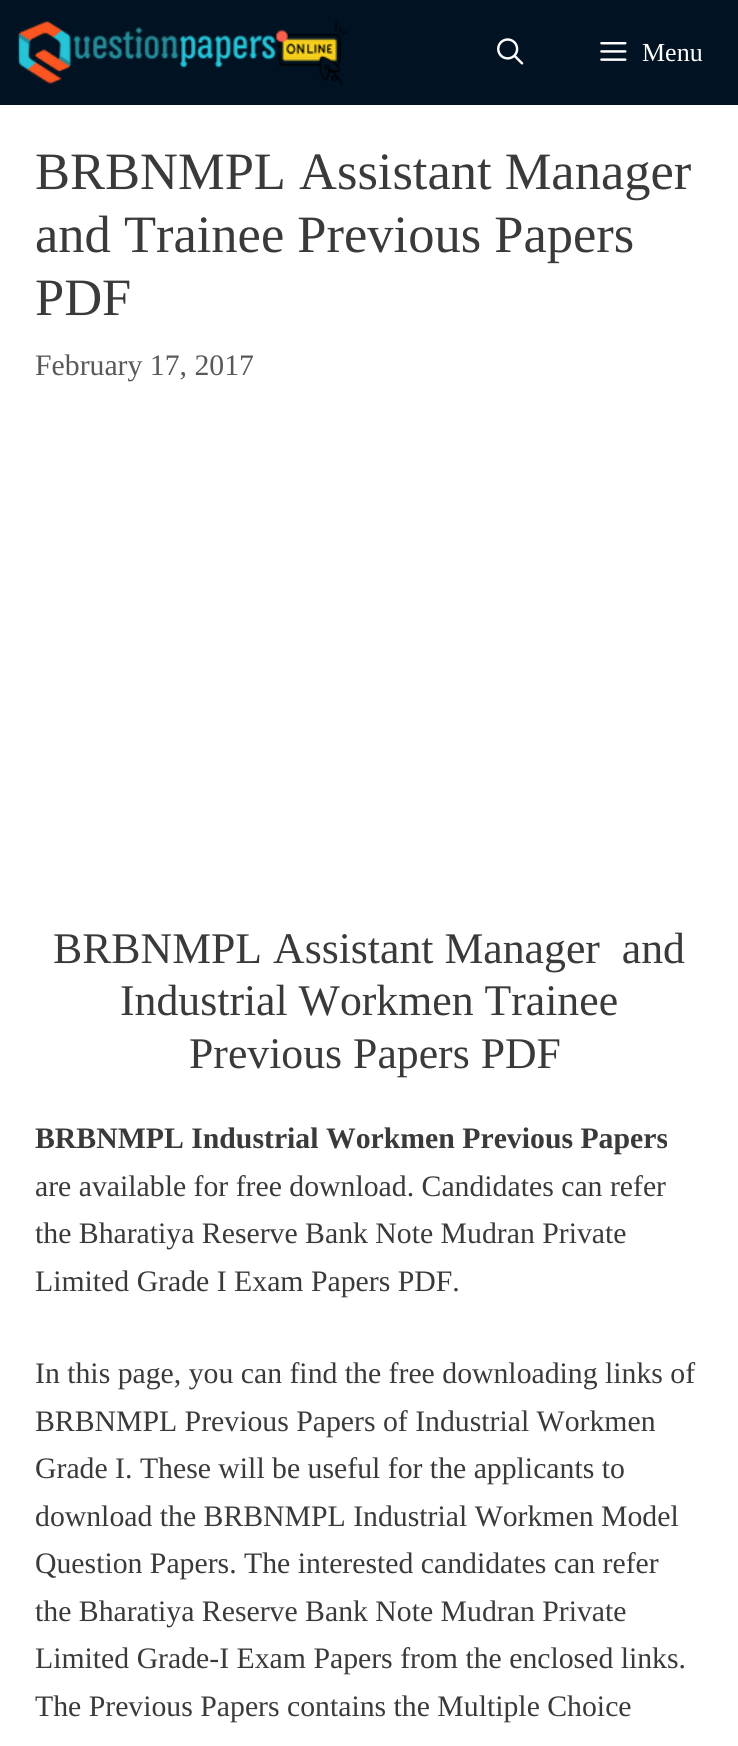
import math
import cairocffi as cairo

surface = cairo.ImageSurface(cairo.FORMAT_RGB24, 738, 1746)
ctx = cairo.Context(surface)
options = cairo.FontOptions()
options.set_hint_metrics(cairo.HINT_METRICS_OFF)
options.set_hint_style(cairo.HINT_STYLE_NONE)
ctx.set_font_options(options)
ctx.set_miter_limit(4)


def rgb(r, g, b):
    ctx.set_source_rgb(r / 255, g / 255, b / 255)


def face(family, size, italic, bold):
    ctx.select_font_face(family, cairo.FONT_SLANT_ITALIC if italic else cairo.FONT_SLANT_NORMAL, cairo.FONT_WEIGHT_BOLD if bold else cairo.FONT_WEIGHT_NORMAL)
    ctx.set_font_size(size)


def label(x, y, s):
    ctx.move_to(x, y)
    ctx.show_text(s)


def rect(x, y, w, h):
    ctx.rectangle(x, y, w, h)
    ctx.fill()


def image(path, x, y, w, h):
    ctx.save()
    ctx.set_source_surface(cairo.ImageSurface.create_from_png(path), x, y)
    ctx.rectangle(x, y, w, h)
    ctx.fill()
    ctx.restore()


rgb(255, 255, 255)
ctx.paint()
rgb(1, 19, 35)
rect(0, 0, 738, 105)
image('image0.png', 17, 21, 331, 65)
image('image1.png', 497, 38, 27, 27)
image('image2.png', 600, 42, 27, 19)
face('Liberation Serif', 26, 0, 0)
rgb(255, 255, 255)
label(642, 61, 'Menu')
face('Liberation Serif', 52.5, 0, 0)
rgb(58, 58, 58)
label(35, 189, 'BRBNMPL Assistant Manager')
label(35, 252, 'and Trainee Previous Papers')
label(35, 315, 'PDF')
face('Liberation Serif', 29.75, 0, 0)
rgb(89, 89, 89)
label(35, 375, 'February 17, 2017')
face('Liberation Serif', 43.75, 0, 0)
rgb(58, 58, 58)
label(53, 963, 'BRBNMPL Assistant Manager  and')
label(120, 1015, 'Industrial Workmen Trainee')
label(189, 1068, 'Previous Papers PDF')
face('Liberation Serif', 29.75, 0, 1)
label(35, 1148, 'BRBNMPL Industrial Workmen Previous Papers')
face('Liberation Serif', 29.75, 0, 0)
label(35, 1196, 'are available for free download. Candidates can refer')
label(35, 1243, 'the Bharatiya Reserve Bank Note Mudran Private')
label(35, 1291, 'Limited Grade I Exam Papers PDF.')
label(35, 1383, 'In this page, you can find the free downloading links of')
label(35, 1431, 'BRBNMPL Previous Papers of Industrial Workmen')
label(35, 1478, 'Grade I. These will be useful for the applicants to')
label(35, 1526, 'download the BRBNMPL Industrial Workmen Model')
label(35, 1573, 'Question Papers. The interested candidates can refer')
label(35, 1621, 'the Bharatiya Reserve Bank Note Mudran Private')
label(35, 1668, 'Limited Grade-I Exam Papers from the enclosed links.')
label(35, 1716, 'The Previous Papers contains the Multiple Choice')
surface.write_to_png('render.png')
